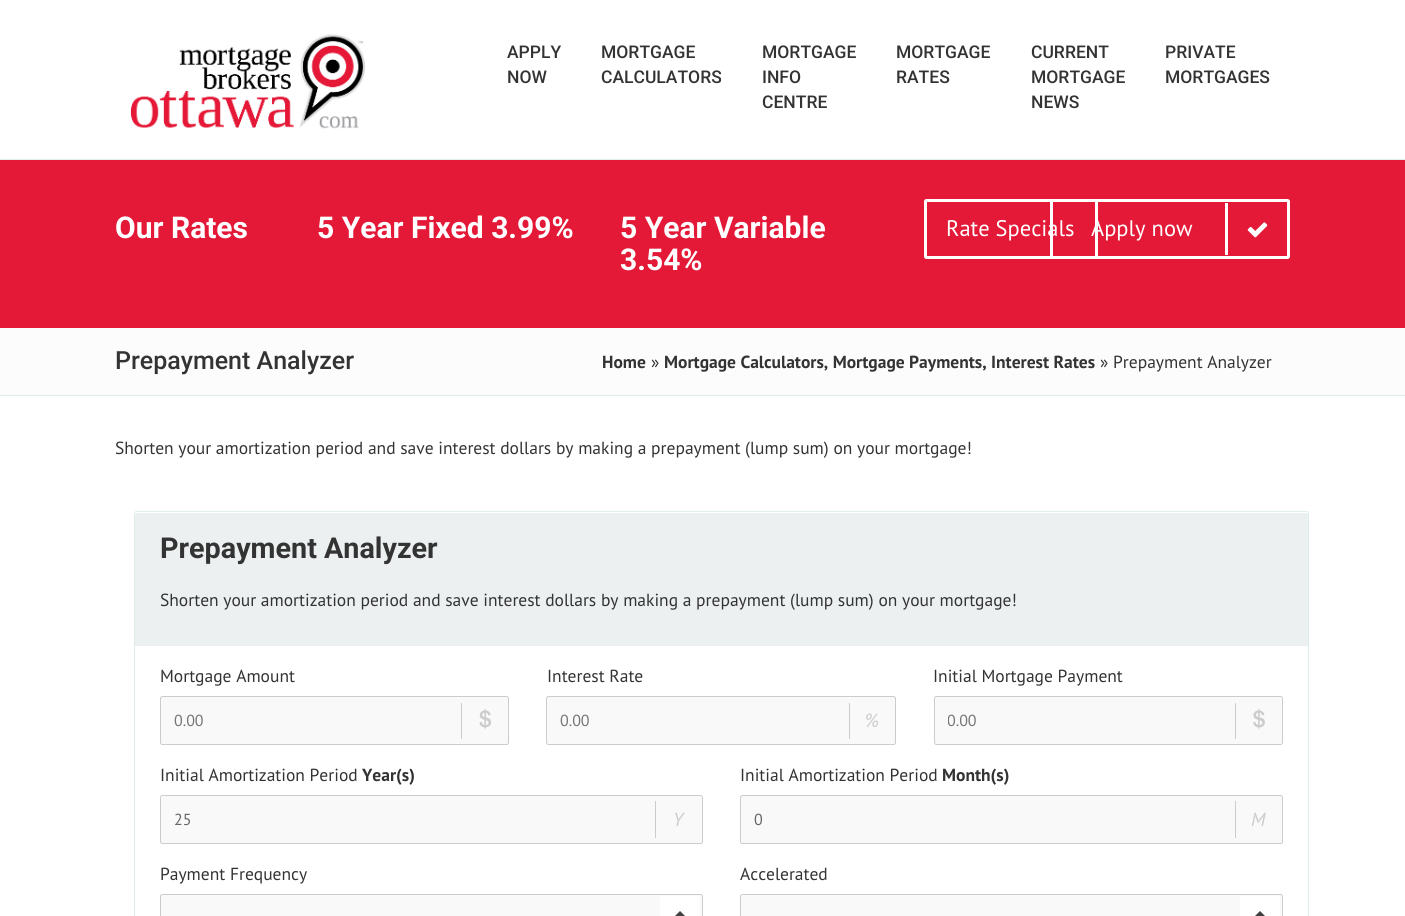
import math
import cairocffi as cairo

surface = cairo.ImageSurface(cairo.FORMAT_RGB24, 1405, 916)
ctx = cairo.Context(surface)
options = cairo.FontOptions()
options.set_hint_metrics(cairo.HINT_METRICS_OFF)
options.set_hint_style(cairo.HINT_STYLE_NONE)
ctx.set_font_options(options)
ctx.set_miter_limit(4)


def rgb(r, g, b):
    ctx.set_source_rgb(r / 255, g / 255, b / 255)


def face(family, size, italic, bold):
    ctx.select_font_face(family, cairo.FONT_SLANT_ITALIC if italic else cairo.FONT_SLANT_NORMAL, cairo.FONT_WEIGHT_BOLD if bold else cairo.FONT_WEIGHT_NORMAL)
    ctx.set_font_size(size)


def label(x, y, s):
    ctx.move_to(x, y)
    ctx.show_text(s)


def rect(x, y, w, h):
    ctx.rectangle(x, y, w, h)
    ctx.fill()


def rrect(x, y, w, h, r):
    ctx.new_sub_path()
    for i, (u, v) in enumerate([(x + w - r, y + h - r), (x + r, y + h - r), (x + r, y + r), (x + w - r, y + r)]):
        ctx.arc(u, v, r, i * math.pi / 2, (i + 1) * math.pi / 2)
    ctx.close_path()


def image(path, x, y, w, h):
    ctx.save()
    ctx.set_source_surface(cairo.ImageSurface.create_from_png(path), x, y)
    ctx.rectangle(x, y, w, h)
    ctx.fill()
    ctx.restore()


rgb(255, 255, 255)
ctx.paint()
rgb(224, 237, 237)
rect(0, 159, 1405, 1)
image('image0.png', 130, 34, 236, 95)
face('Roboto Medium', 17.5, 0, 0)
rgb(51, 51, 51)
label(507, 58, 'APPLY')
label(507, 83, 'NOW')
label(601, 58, 'MORTGAGE')
label(601, 83, 'CALCULATORS')
label(762, 58, 'MORTGAGE')
label(762, 83, 'INFO')
label(762, 108, 'CENTRE')
label(896, 58, 'MORTGAGE')
label(896, 83, 'RATES')
label(1031, 58, 'CURRENT')
label(1031, 83, 'MORTGAGE')
label(1031, 108, 'NEWS')
label(1165, 58, 'PRIVATE')
label(1165, 83, 'MORTGAGES')
rgb(227, 25, 55)
rect(0, 160, 1405, 168)
face('Roboto', 30, 0, 1)
rgb(255, 255, 255)
label(115, 238, 'Our Rates')
label(317, 238, '5 Year Fixed 3.99%')
label(620, 238, '5 Year Variable')
label(620, 270, '3.54%')
rrect(925.5, 200.5, 171, 57, 1)
ctx.set_line_width(3)
ctx.stroke()
face('PT Sans', 22.5, 0, 0)
label(946, 236, 'Rate Specials')
rrect(1051.5, 200.5, 237, 57, 1)
ctx.stroke()
label(1091, 236, 'Apply now')
rect(1225, 203, 3, 52)
image('image1.png', 1247, 222, 21, 16)
rgb(252, 252, 252)
rect(0, 328, 1405, 67)
rgb(224, 237, 237)
rect(0, 395, 1405, 1)
face('Roboto Medium', 25, 0, 0)
rgb(51, 51, 51)
label(115, 369, 'Prepayment Analyzer')
face('PT Sans', 17.5, 0, 1)
label(602, 368, 'Home')
face('PT Sans', 17.5, 0, 0)
label(651, 368, '»')
face('PT Sans', 17.5, 0, 1)
label(664, 368, 'Mortgage Calculators, Mortgage Payments, Interest Rates')
face('PT Sans', 17.5, 0, 0)
label(1100, 368, '» Prepayment Analyzer')
label(115, 454, 'Shorten your amortization period and save interest dollars by making a prepayment (lump sum) on your mortgage!')
rrect(134.5, 511.5, 1174, 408, 2)
rgb(224, 237, 237)
ctx.set_line_width(1)
ctx.stroke()
rgb(236, 240, 241)
ctx.new_path()
ctx.move_to(137.5, 513)
ctx.line_to(1305.5, 513)
ctx.curve_to(1307, 513, 1308, 514, 1308, 515.5)
ctx.line_to(1308, 646)
ctx.line_to(135, 646)
ctx.line_to(135, 515.5)
ctx.curve_to(135, 514, 136, 513, 137.5, 513)
ctx.close_path()
ctx.fill()
face('Roboto', 28.75, 0, 1)
rgb(51, 51, 51)
label(160, 558, 'Prepayment Analyzer')
face('PT Sans', 17.5, 0, 0)
label(160, 606, 'Shorten your amortization period and save interest dollars by making a prepayment (lump sum) on your mortgage!')
label(160, 682, 'Mortgage Amount')
rgb(249, 249, 249)
rrect(160.5, 696.5, 348, 48, 2)
ctx.fill_preserve()
rgb(204, 204, 204)
ctx.stroke()
face('PT Sans', 16, 0, 0)
rgb(117, 117, 117)
label(174, 726, '0.00')
rgb(204, 204, 204)
rect(461, 703, 1, 36)
image('image2.png', 479, 709, 13, 20)
face('PT Sans', 17.5, 0, 0)
rgb(51, 51, 51)
label(547, 682, 'Interest Rate')
rgb(249, 249, 249)
rrect(546.5, 696.5, 349, 48, 2)
ctx.fill_preserve()
rgb(204, 204, 204)
ctx.stroke()
face('PT Sans', 16, 0, 0)
rgb(117, 117, 117)
label(560, 726, '0.00')
rgb(204, 204, 204)
rect(849, 703, 1, 36)
face('PT Sans', 19, 1, 0)
label(865, 727, '%')
face('PT Sans', 17.5, 0, 0)
rgb(51, 51, 51)
label(933, 682, 'Initial Mortgage Payment')
rgb(249, 249, 249)
rrect(934.5, 696.5, 348, 48, 2)
ctx.fill_preserve()
rgb(204, 204, 204)
ctx.stroke()
ctx.save()
ctx.rectangle(948, 710, 276, 21)
ctx.clip()
face('PT Sans', 16, 0, 0)
rgb(117, 117, 117)
label(947, 726, '0.00')
ctx.restore()
rect(1235, 703, 1, 36)
image('image3.png', 1253, 709, 12, 20)
rgb(51, 51, 51)
label(160, 781, 'Initial Amortization Period')
face('PT Sans', 17.5, 0, 1)
label(362, 781, 'Year(s)')
rgb(249, 249, 249)
rrect(160.5, 795.5, 542, 48, 2)
ctx.fill_preserve()
rgb(204, 204, 204)
ctx.stroke()
face('PT Sans', 16, 0, 0)
rgb(102, 102, 102)
label(174, 825, '25')
rgb(204, 204, 204)
rect(655, 801, 1, 37)
face('PT Sans', 19, 1, 0)
label(673, 826, 'Y')
face('PT Sans', 17.5, 0, 0)
rgb(51, 51, 51)
label(740, 781, 'Initial Amortization Period')
face('PT Sans', 17.5, 0, 1)
label(942, 781, 'Month(s)')
rgb(249, 249, 249)
rrect(740.5, 795.5, 542, 48, 2)
ctx.fill_preserve()
rgb(204, 204, 204)
ctx.stroke()
face('PT Sans', 16, 0, 0)
rgb(102, 102, 102)
label(754, 825, '0')
rgb(204, 204, 204)
rect(1235, 801, 1, 37)
face('PT Sans', 19, 1, 0)
label(1251, 826, 'M')
face('PT Sans', 17.5, 0, 0)
rgb(51, 51, 51)
label(160, 880, 'Payment Frequency')
rgb(249, 249, 249)
rrect(160.5, 894.5, 542, 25, 2)
ctx.fill_preserve()
rgb(204, 204, 204)
ctx.stroke()
ctx.rectangle(667.5, 903.5, 25, 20)
rgb(255, 255, 255)
ctx.set_line_width(15)
ctx.stroke()
rect(675, 911, 10, 5)
rgb(64, 64, 64)
ctx.new_path()
ctx.move_to(685, 916)
ctx.line_to(675, 916)
ctx.line_to(680, 911)
ctx.close_path()
ctx.fill()
rgb(51, 51, 51)
label(740, 880, 'Accelerated')
rgb(249, 249, 249)
rrect(740.5, 894.5, 542, 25, 2)
ctx.fill_preserve()
rgb(204, 204, 204)
ctx.set_line_width(1)
ctx.stroke()
ctx.rectangle(1247.5, 903.5, 25, 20)
rgb(255, 255, 255)
ctx.set_line_width(15)
ctx.stroke()
rect(1255, 911, 10, 5)
rgb(64, 64, 64)
ctx.new_path()
ctx.move_to(1265, 916)
ctx.line_to(1255, 916)
ctx.line_to(1260, 911)
ctx.close_path()
ctx.fill()
surface.write_to_png('render.png')
